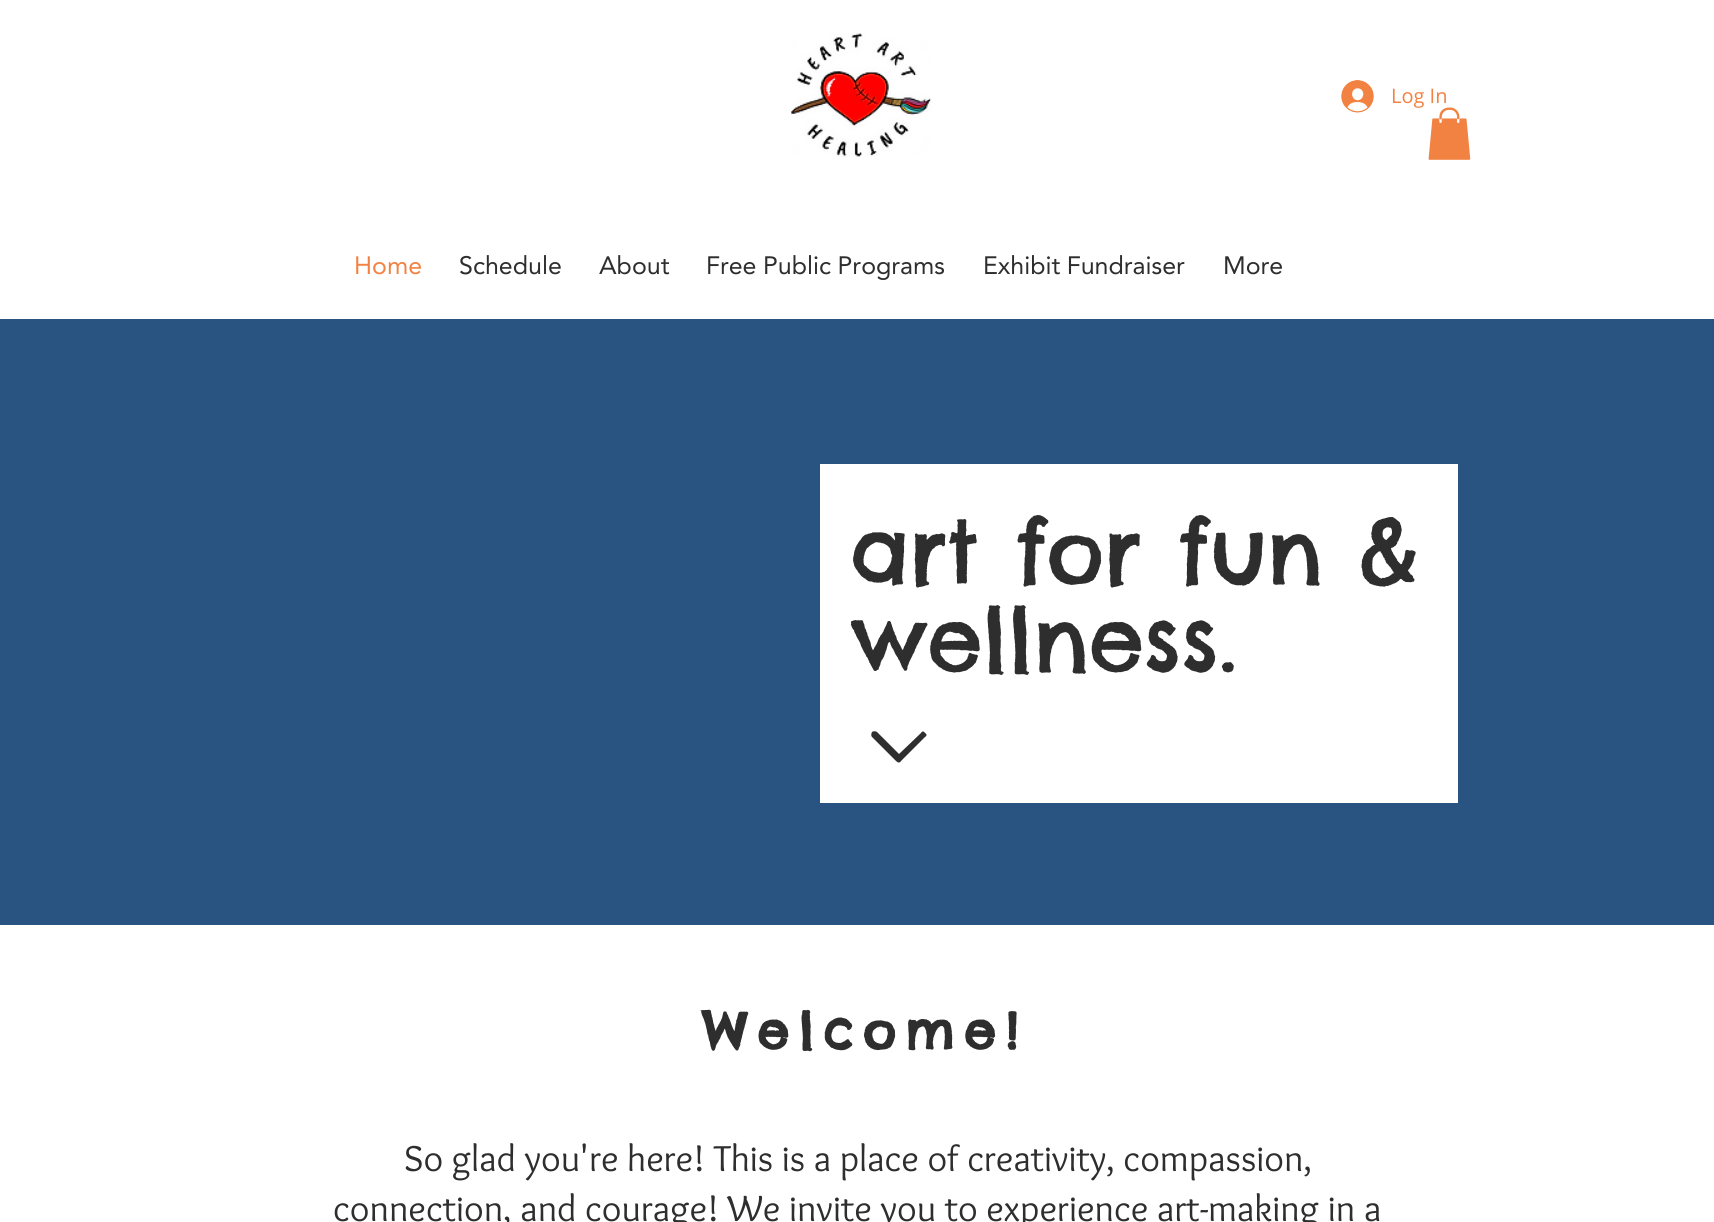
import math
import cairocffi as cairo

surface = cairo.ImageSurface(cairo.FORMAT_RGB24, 1714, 1222)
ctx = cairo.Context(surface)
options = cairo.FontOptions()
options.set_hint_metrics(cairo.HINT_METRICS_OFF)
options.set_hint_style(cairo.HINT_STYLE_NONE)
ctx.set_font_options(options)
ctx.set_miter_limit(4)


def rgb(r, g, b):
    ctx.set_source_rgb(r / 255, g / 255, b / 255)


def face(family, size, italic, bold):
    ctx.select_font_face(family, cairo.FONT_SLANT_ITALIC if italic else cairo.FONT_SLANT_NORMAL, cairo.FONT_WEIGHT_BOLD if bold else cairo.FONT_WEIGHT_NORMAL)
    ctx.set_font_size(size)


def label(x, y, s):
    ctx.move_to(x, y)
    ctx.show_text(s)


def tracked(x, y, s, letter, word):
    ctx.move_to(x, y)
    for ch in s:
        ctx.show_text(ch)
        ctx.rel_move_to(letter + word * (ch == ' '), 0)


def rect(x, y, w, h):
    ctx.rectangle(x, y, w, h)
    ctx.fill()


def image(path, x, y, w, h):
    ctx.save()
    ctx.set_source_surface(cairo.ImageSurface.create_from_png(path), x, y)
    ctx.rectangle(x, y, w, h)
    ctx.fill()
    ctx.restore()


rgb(255, 255, 255)
ctx.paint()
image('image0.png', 791, 33, 141, 124)
image('image1.png', 1341, 80, 33, 33)
face('Open Sans', 20, 0, 0)
rgb(242, 130, 65)
label(1391, 103, 'Log In')
image('image2.png', 1428, 107, 43, 53)
face('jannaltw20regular', 25, 0, 0)
label(354, 274, 'Home')
rgb(47, 46, 46)
label(459, 274, 'Schedule')
label(599, 274, 'About')
label(706, 274, 'Free Public Programs')
label(983, 274, 'Exhibit Fundraiser')
label(1223, 274, 'More')
rgb(41, 83, 128)
rect(0, 319, 1714, 606)
rgb(255, 255, 255)
rect(820, 464, 638, 339)
face('Chelsea Market', 87.5, 0, 0)
rgb(47, 46, 46)
label(850, 583, 'art for fun &')
label(850, 671, 'wellness.')
ctx.new_path()
ctx.move_to(921, 733)
ctx.line_to(899, 754)
ctx.line_to(877, 732)
ctx.curve_to(876, 731, 873, 731, 872, 732)
ctx.curve_to(871, 734, 871, 736, 872, 737)
ctx.line_to(896, 761)
ctx.curve_to(898, 763, 900, 763, 901, 761)
ctx.line_to(925, 737)
ctx.curve_to(927, 736, 927, 734, 925, 733)
ctx.curve_to(924, 731, 922, 731, 921, 733)
ctx.close_path()
ctx.fill()
face('Chelsea Market', 50, 0, 1)
tracked(702, 1049, 'Welcome!', 10, 0)
face('Overlock', 37.5, 0, 0)
label(404, 1171, 'So glad you\'re here! This is a place of creativity, compassion,')
label(333, 1221, 'connection, and courage! We invite you to experience art-making in a')
surface.write_to_png('render.png')
